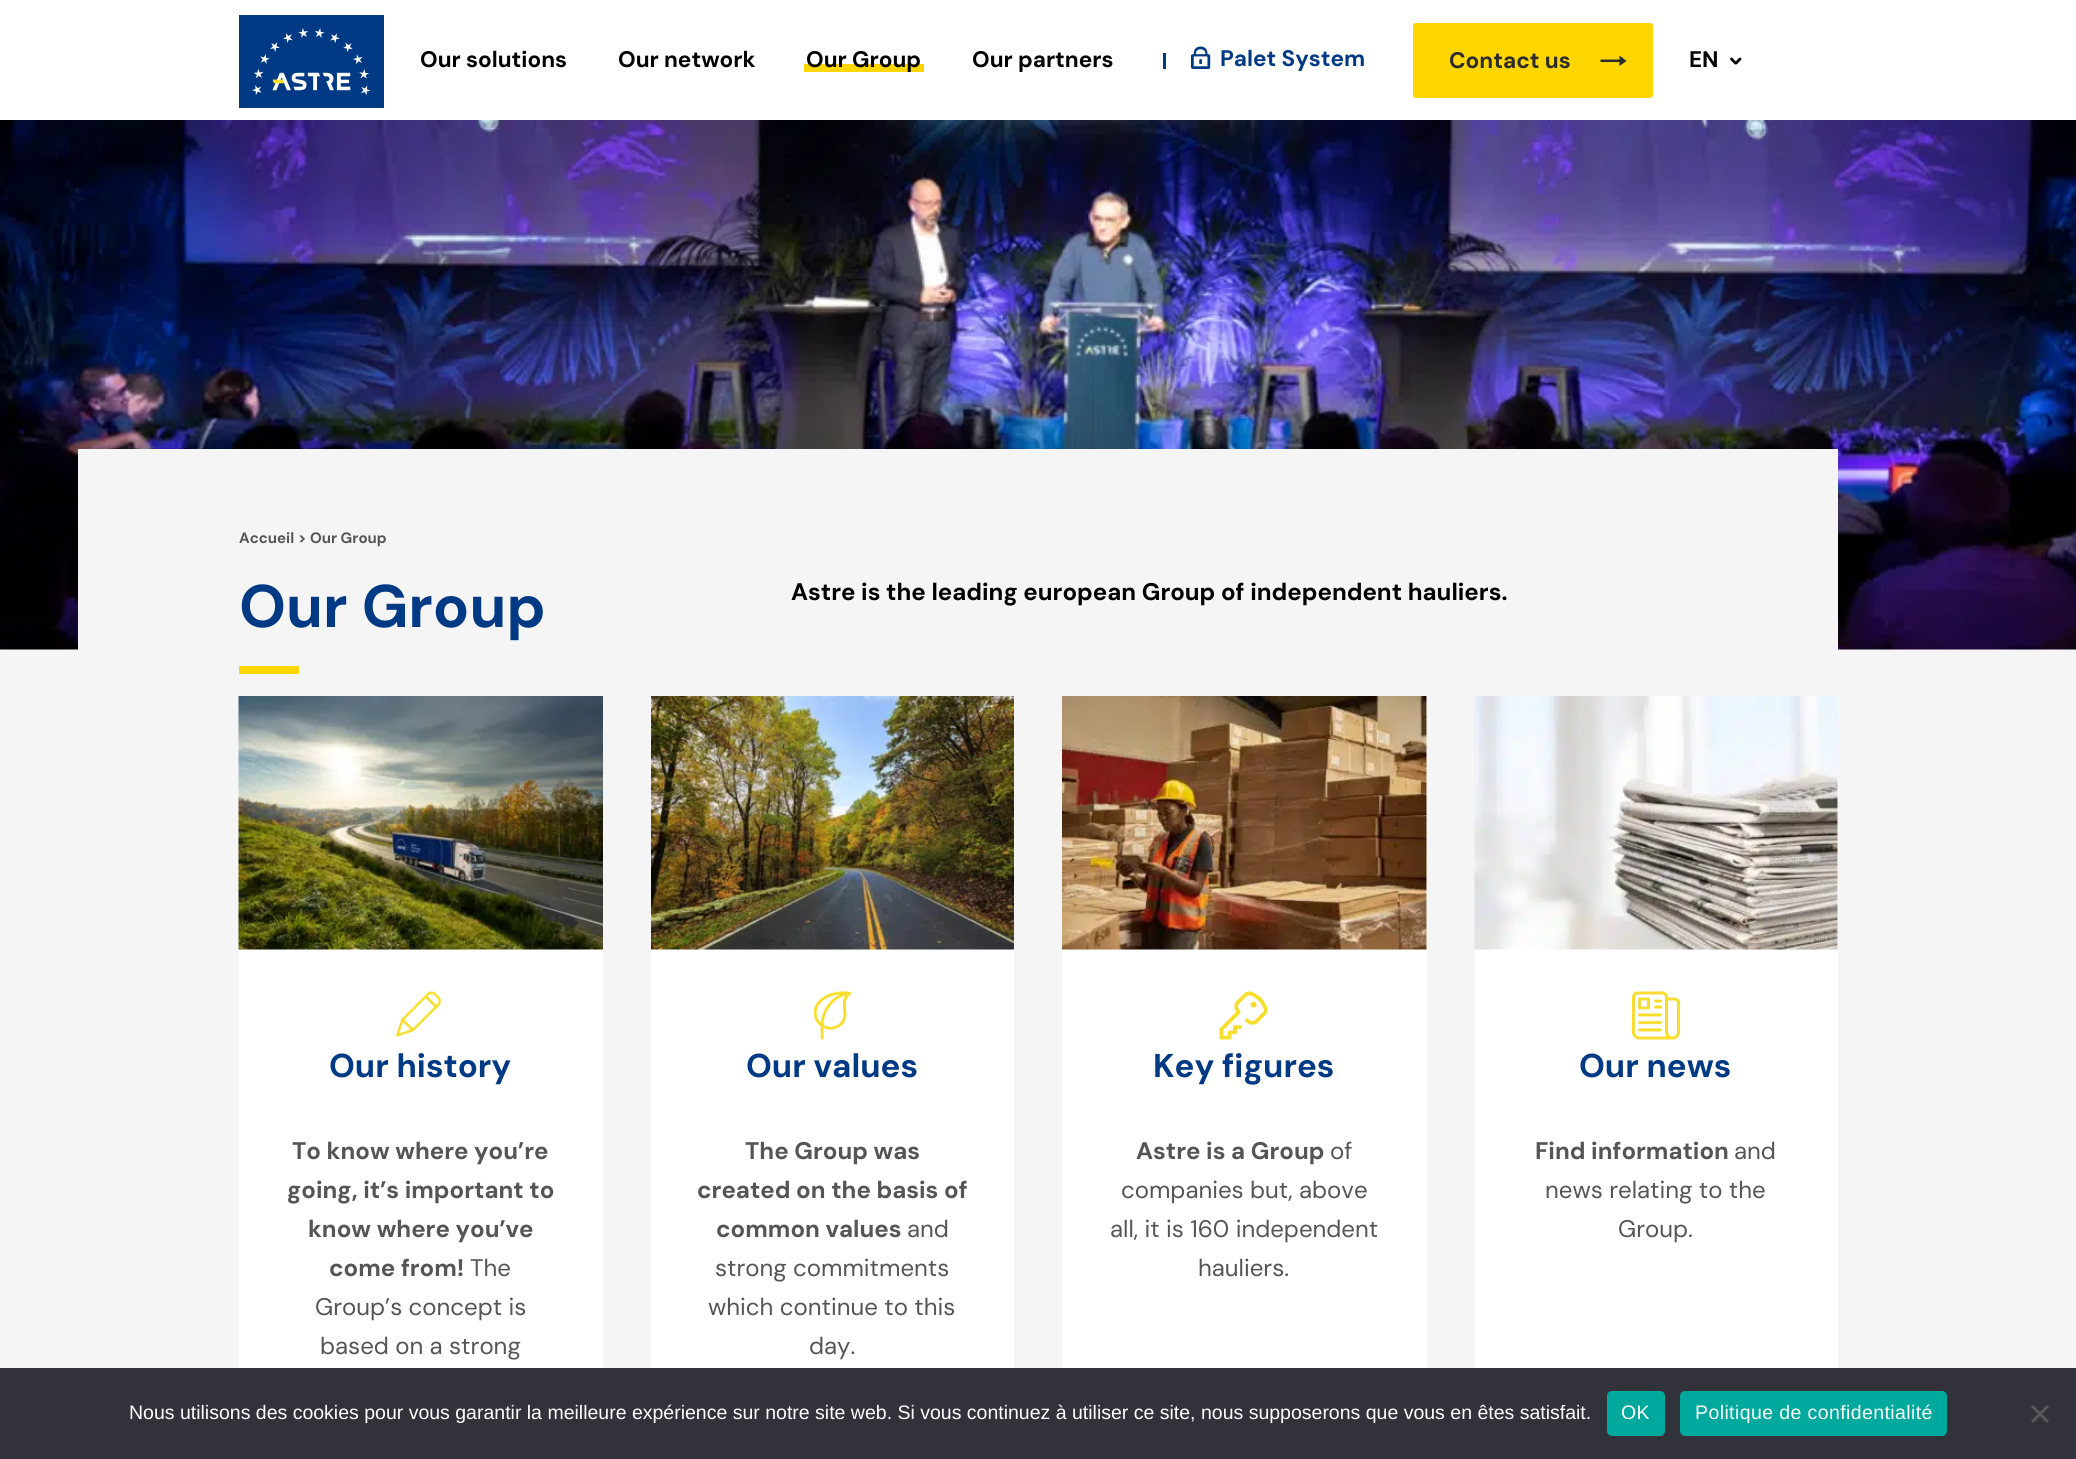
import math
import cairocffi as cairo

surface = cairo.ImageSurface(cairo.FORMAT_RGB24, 2076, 1459)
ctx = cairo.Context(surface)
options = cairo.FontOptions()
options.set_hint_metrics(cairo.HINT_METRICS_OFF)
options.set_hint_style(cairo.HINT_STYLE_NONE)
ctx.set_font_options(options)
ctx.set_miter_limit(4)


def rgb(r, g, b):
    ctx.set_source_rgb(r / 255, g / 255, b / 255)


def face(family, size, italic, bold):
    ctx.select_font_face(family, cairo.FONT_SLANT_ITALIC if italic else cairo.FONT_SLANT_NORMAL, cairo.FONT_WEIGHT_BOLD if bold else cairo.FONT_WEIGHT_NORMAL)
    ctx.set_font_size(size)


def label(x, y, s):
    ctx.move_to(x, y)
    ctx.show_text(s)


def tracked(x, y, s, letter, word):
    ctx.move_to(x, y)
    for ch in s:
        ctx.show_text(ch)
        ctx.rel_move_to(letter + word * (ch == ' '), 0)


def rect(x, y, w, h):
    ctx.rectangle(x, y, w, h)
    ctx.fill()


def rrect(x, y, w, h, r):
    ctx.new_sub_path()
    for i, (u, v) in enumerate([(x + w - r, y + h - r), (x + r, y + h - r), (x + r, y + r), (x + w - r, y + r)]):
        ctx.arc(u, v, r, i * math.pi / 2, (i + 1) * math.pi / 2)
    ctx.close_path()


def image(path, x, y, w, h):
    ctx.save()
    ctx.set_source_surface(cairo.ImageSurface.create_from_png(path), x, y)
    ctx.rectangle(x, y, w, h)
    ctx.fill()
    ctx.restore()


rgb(255, 255, 255)
ctx.paint()
image('image0.png', 239, 15, 145, 93)
face('DM Sans', 22.5, 0, 1)
rgb(0, 0, 0)
label(420, 67, 'Our solutions')
label(618, 67, 'Our network')
gradient = cairo.LinearGradient(864, 49, 864, 72)
gradient.add_color_stop_rgba(0, 1, 1, 1, 1)
gradient.add_color_stop_rgba(0.67, 1, 1, 1, 1)
gradient.add_color_stop_rgba(0.67, 1, 0.839, 0, 1)
gradient.add_color_stop_rgba(1, 1, 0.839, 0, 1)
gradient.add_color_stop_rgba(1, 1, 1, 1, 1)
ctx.set_source(gradient)
rect(804, 64, 120, 8)
rgb(0, 0, 0)
label(806, 67, 'Our Group')
label(972, 67, 'Our partners')
rgb(0, 58, 133)
rect(1163, 53, 3, 16)
image('image1.png', 1191, 46, 20, 23)
label(1220, 66, 'Palet System')
rgb(255, 214, 0)
rrect(1413, 23, 240, 75, 3)
ctx.fill()
rgb(44, 44, 43)
label(1449, 68, 'Contact us')
ctx.new_path()
ctx.move_to(1619.5, 55.5)
ctx.line_to(1626.5, 61)
ctx.line_to(1619.5, 66)
ctx.line_to(1619.5, 62)
ctx.line_to(1600.5, 62)
ctx.line_to(1600.5, 59.5)
ctx.line_to(1619.5, 59.5)
ctx.close_path()
ctx.fill()
rgb(0, 0, 0)
label(1689, 67, 'EN')
image('image2.png', 1730, 57, 12, 8)
rgb(245, 245, 245)
rect(0, 649, 2076, 719)
image('image3.png', 0, 120, 2076, 530)
rect(78, 449, 1760, 201)
face('DM Sans', 15, 0, 1)
rgb(85, 85, 85)
label(239, 543, 'Accueil > Our Group')
face('DM Sans', 60, 0, 1)
rgb(0, 58, 133)
label(239, 627, 'Our Group')
rgb(255, 214, 0)
rect(239, 666, 60, 8)
face('DM Sans', 24, 0, 1)
rgb(0, 0, 0)
label(791, 600, 'Astre is the leading european Group of independent hauliers.')
rgb(255, 255, 255)
rect(239, 949, 364, 419)
image('image4.png', 238, 696, 365, 254)
image('image5.png', 396, 991, 45, 46)
face('DM Sans', 33, 0, 1)
rgb(0, 58, 133)
label(329, 1077, 'Our history')
face('DM Sans', 24, 0, 1)
rgb(85, 85, 85)
label(292, 1159, 'To know where you’re')
label(287, 1198, 'going, it’s important to')
label(308, 1237, 'know where you’ve')
label(329, 1276, 'come from!')
face('DM Sans', 24, 0, 0)
label(470, 1276, 'The')
label(315, 1315, 'Group’s concept is')
label(320, 1354, 'based on a strong')
rgb(255, 255, 255)
rect(651, 949, 363, 419)
image('image6.png', 651, 696, 363, 254)
image('image7.png', 813, 991, 39, 49)
face('DM Sans', 33, 0, 1)
rgb(0, 58, 133)
label(746, 1077, 'Our values')
face('DM Sans', 24, 0, 1)
rgb(85, 85, 85)
label(745, 1159, 'The Group was')
label(697, 1198, 'created on the basis of')
label(716, 1237, 'common values')
face('DM Sans', 24, 0, 0)
label(907, 1237, 'and')
label(715, 1276, 'strong commitments')
label(708, 1315, 'which continue to this')
label(809, 1354, 'day.')
rgb(255, 255, 255)
rect(1062, 696, 365, 672)
image('image8.png', 1062, 696, 365, 254)
image('image9.png', 1219, 991, 49, 49)
face('DM Sans', 33, 0, 1)
rgb(0, 58, 133)
label(1153, 1077, 'Key figures')
face('DM Sans', 24, 0, 1)
rgb(85, 85, 85)
label(1136, 1159, 'Astre is a Group')
face('DM Sans', 24, 0, 0)
label(1330, 1159, 'of')
label(1121, 1198, 'companies but, above')
label(1110, 1237, 'all, it is 160 independent')
label(1198, 1276, 'hauliers.')
rgb(255, 255, 255)
rect(1475, 696, 363, 672)
image('image10.png', 1474, 696, 364, 254)
image('image11.png', 1632, 991, 48, 49)
face('DM Sans', 33, 0, 1)
rgb(0, 58, 133)
label(1579, 1077, 'Our news')
face('DM Sans', 24, 0, 1)
rgb(85, 85, 85)
label(1535, 1159, 'Find information')
face('DM Sans', 24, 0, 0)
label(1734, 1159, 'and')
label(1545, 1198, 'news relating to the')
label(1618, 1237, 'Group.')
rgb(50, 50, 58)
rect(0, 1368, 2076, 91)
face('Liberation Sans', 19.5, 0, 0)
rgb(255, 255, 255)
label(129, 1419, 'Nous utilisons des cookies pour vous garantir la meilleure expérience sur notre site web. Si vous continuez à utiliser ce site, nous supposerons que vous en êtes satisfait.')
rgb(0, 169, 157)
rrect(1607, 1391, 58, 45, 5)
ctx.fill()
rgb(255, 255, 255)
tracked(1621, 1419, 'OK', 0.4, 0)
rgb(0, 169, 157)
rrect(1680, 1391, 267, 45, 5)
ctx.fill()
rgb(255, 255, 255)
tracked(1695, 1419, 'Politique de confidentialité', 0.4, 0)
rgb(89, 89, 93)
ctx.new_path()
ctx.move_to(2047, 1405)
ctx.line_to(2049, 1407)
ctx.line_to(2033, 1423)
ctx.line_to(2031, 1421)
ctx.close_path()
ctx.fill()
ctx.new_path()
ctx.move_to(2031, 1407)
ctx.line_to(2033, 1405)
ctx.line_to(2049, 1421)
ctx.line_to(2047, 1423)
ctx.close_path()
ctx.fill()
surface.write_to_png('render.png')
